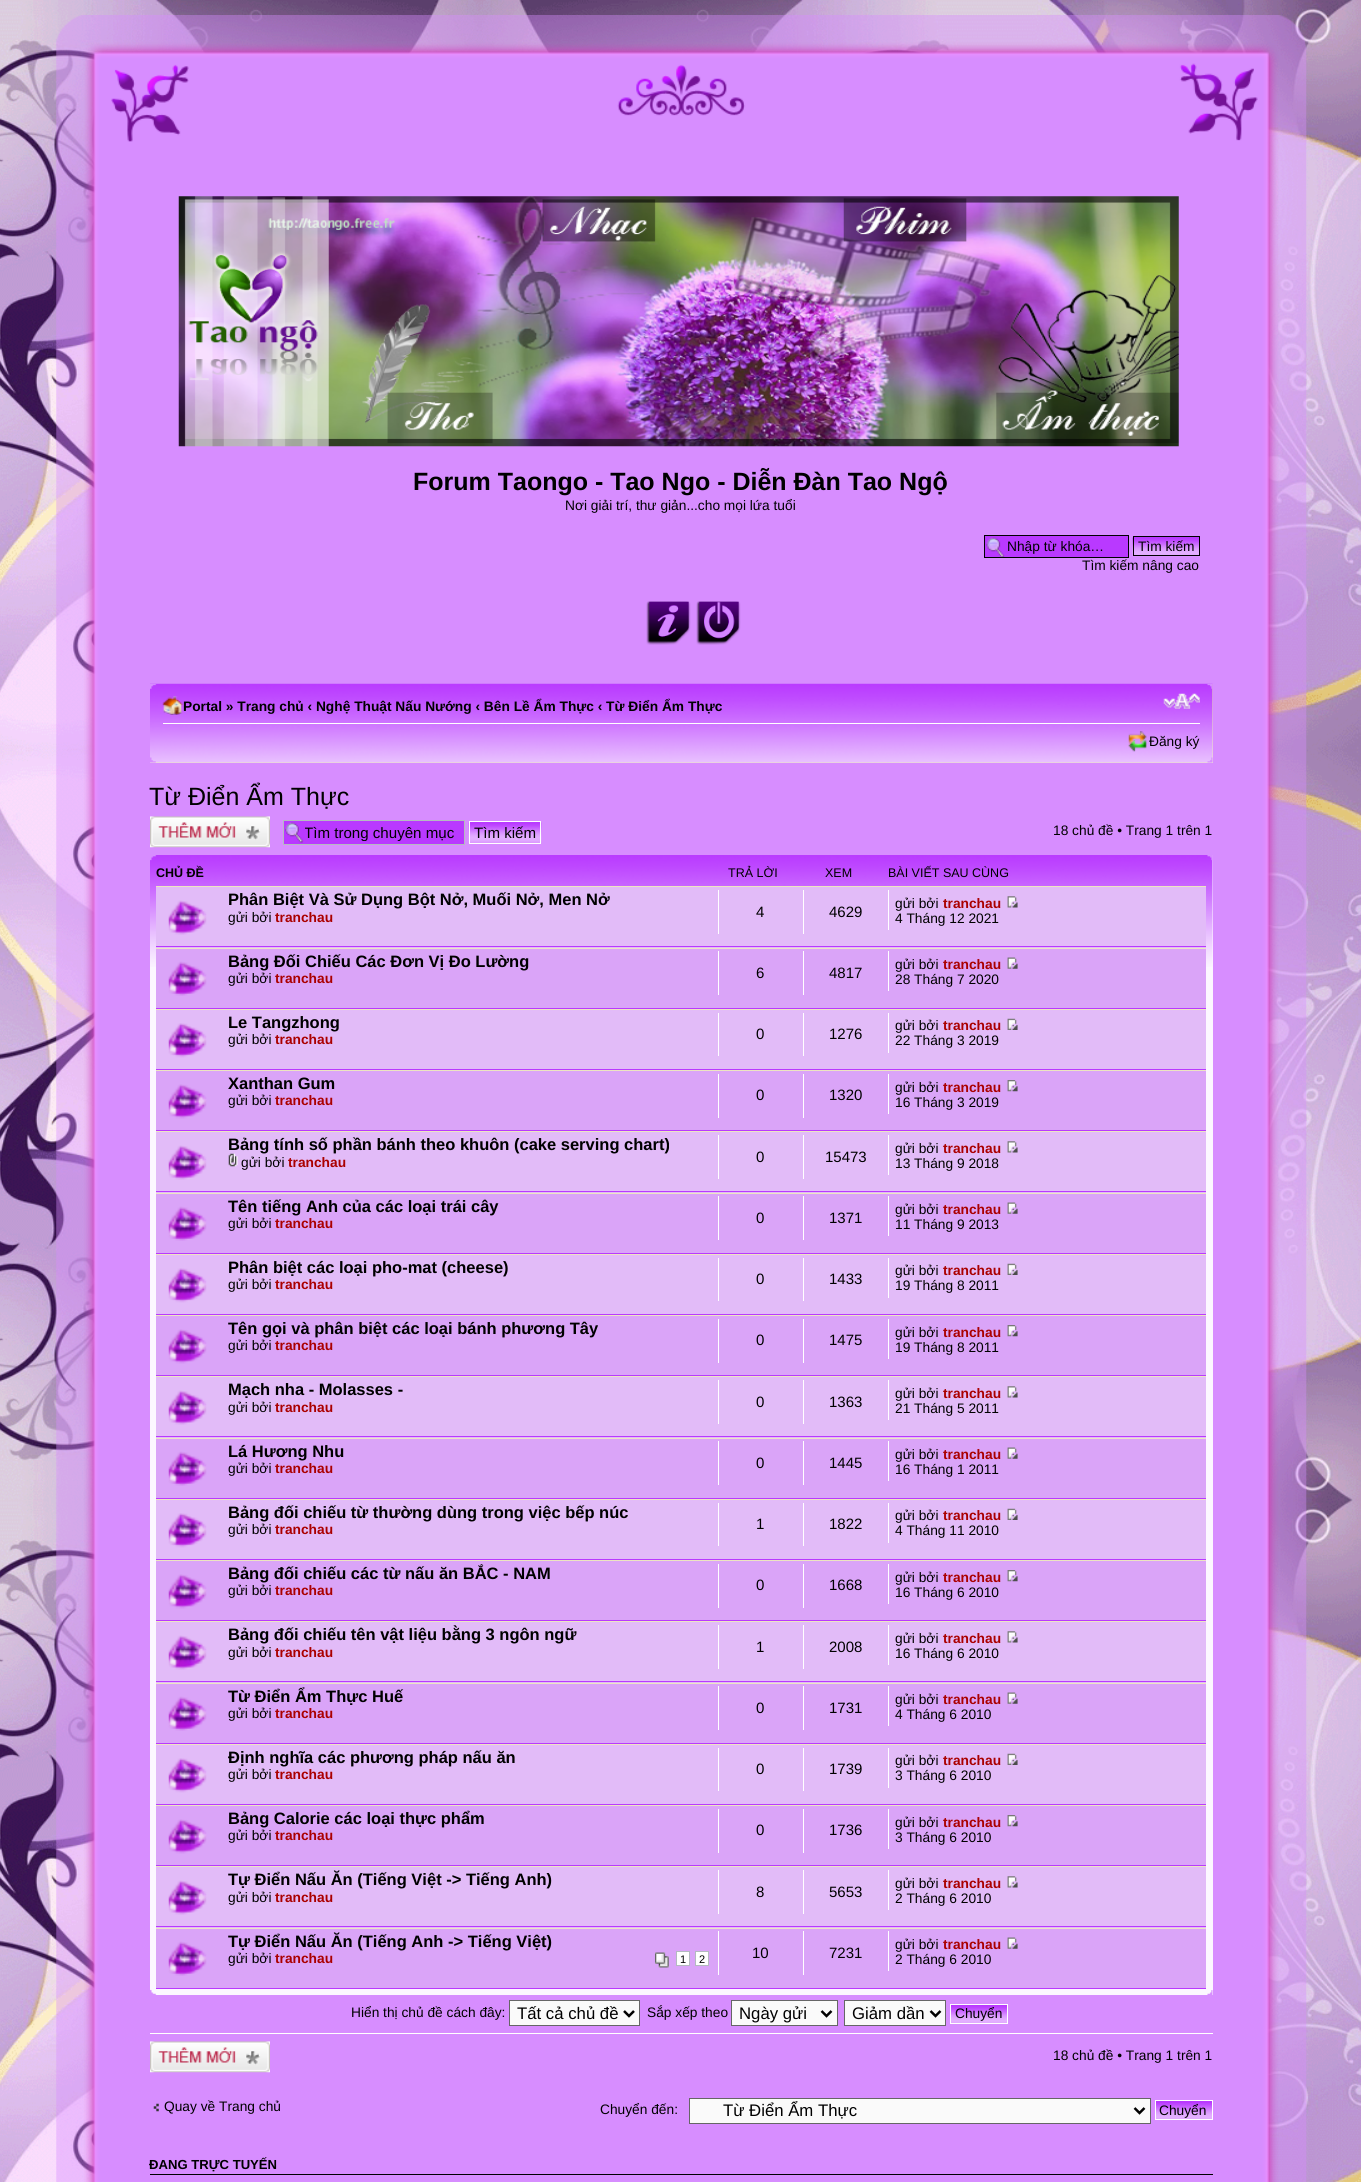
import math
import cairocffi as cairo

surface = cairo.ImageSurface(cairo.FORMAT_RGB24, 1361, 2182)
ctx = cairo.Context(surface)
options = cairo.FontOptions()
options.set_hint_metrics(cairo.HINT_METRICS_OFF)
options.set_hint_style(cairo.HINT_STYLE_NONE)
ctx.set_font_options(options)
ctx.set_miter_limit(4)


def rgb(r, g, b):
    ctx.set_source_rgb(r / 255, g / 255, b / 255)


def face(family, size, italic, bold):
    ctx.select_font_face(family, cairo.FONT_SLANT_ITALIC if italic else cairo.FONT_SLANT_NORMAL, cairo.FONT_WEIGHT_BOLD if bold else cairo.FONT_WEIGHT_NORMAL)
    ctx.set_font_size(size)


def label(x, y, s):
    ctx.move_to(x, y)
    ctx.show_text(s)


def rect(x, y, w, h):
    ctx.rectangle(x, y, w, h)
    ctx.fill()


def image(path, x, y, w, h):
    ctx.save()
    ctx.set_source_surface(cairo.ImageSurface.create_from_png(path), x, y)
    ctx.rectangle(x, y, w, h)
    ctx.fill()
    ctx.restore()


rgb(255, 255, 255)
ctx.paint()
image('image0.png', 0, 0, 1361, 2182)
image('image1.png', 56, 15, 1251, 175)
image('image2.png', 56, 190, 1251, 1992)
image('image3.png', 178, 196, 1001, 251)
face('Liberation Sans', 25, 0, 1)
rgb(0, 0, 0)
label(413, 490, 'Forum Taongo - Tao Ngo - Diễn Đàn Tao Ngộ')
face('Liberation Sans', 13.75, 0, 0)
label(565, 510, 'Nơi giải trí, thư giản...cho mọi lứa tuổi')
rgb(185, 57, 255)
rect(985, 536, 143, 21)
image('image4.png', 986, 537, 19, 20)
ctx.rectangle(984.5, 535.5, 144, 22)
rgb(0, 0, 0)
ctx.set_line_width(1)
ctx.stroke()
label(1007, 551, 'Nhập từ khóa…')
rgb(185, 57, 255)
rect(1134, 537, 65, 1)
image('image5.png', 1132, 537, 68, 20)
ctx.rectangle(1133.5, 536.5, 66, 19)
rgb(0, 0, 0)
ctx.stroke()
label(1138, 551, 'Tìm kiếm')
label(1082, 570, 'Tìm kiếm nâng cao')
image('image6.png', 646, 601, 45, 44)
image('image7.png', 696, 601, 45, 44)
rgb(237, 229, 193)
rect(150, 684, 1063, 79)
image('image8.png', 150, 683, 1063, 80)
image('image9.png', 150, 683, 7, 6)
image('image10.png', 1207, 683, 6, 6)
rgb(255, 255, 255)
rect(163, 723, 1037, 1)
image('image11.png', 162, 696, 21, 19)
face('Liberation Sans', 13.75, 0, 1)
rgb(0, 0, 0)
label(183, 711, 'Portal » Trang chủ ‹ Nghệ Thuật Nấu Nướng ‹ Bên Lề Ẩm Thực ‹ Từ Điển Ẩm Thực')
image('image12.png', 1163, 693, 37, 16)
image('image13.png', 1128, 731, 19, 21)
face('Liberation Sans', 13.75, 0, 0)
label(1149, 746, 'Đăng ký')
image('image14.png', 150, 757, 6, 6)
image('image15.png', 1207, 757, 6, 6)
face('Liberation Sans', 25, 0, 0)
label(149, 805, 'Từ Điển Ẩm Thực')
image('image16.png', 150, 816, 120, 32)
rgb(185, 57, 255)
rect(284, 821, 180, 23)
image('image17.png', 285, 822, 19, 21)
ctx.rectangle(283.5, 820.5, 181, 24)
rgb(180, 186, 192)
ctx.stroke()
ctx.save()
ctx.rectangle(305, 824, 156, 17)
ctx.clip()
face('Liberation Sans', 15.1, 0, 0)
rgb(0, 0, 0)
label(304, 838, 'Tìm trong chuyên mục')
ctx.restore()
rgb(185, 57, 255)
rect(470, 822, 70, 1)
image('image18.png', 468, 822, 74, 22)
ctx.rectangle(469.5, 821.5, 71, 22)
rgb(255, 255, 255)
ctx.stroke()
face('Liberation Sans', 15.1, 0, 0)
rgb(0, 0, 0)
label(474, 838, 'Tìm kiếm')
face('Liberation Sans', 13.75, 0, 0)
label(1053, 835, '18 chủ đề • Trang 1 trên 1')
rgb(252, 247, 255)
rect(150, 855, 1063, 1140)
image('image19.png', 150, 855, 1063, 112)
image('image20.png', 150, 855, 7, 6)
image('image21.png', 1207, 855, 6, 6)
face('Liberation Sans', 12.5, 0, 1)
rgb(0, 0, 0)
label(156, 877, 'CHỦ ĐỀ')
face('Liberation Sans', 12.5, 0, 0)
label(728, 877, 'TRẢ LỜI')
label(825, 877, 'XEM')
label(888, 877, 'BÀI VIẾT SAU CÙNG')
rgb(226, 187, 248)
rect(156, 887, 1050, 61)
rgb(237, 229, 193)
rect(156, 886, 1050, 1)
rgb(185, 57, 255)
rect(156, 946, 1050, 1)
image('image22.png', 168, 900, 39, 35)
face('Liberation Sans', 16.5, 0, 1)
rgb(0, 0, 0)
label(228, 905, 'Phân Biệt Và Sử Dụng Bột Nở, Muối Nở, Men Nở')
face('Liberation Sans', 13.75, 0, 0)
label(228, 922, 'gửi bởi')
face('Liberation Sans', 13.75, 0, 1)
rgb(170, 0, 0)
label(275, 922, 'tranchau')
rgb(255, 255, 255)
rect(718, 890, 1, 44)
face('Liberation Sans', 15, 0, 0)
rgb(0, 0, 0)
label(756, 917, '4')
rgb(255, 255, 255)
rect(803, 890, 1, 44)
rgb(0, 0, 0)
label(829, 917, '4629')
rgb(255, 255, 255)
rect(888, 890, 1, 40)
face('Liberation Sans', 13.75, 0, 0)
rgb(0, 0, 0)
label(895, 908, 'gửi bởi')
face('Liberation Sans', 13.75, 0, 1)
rgb(170, 0, 0)
label(943, 908, 'tranchau')
image('image23.png', 1007, 896, 11, 12)
face('Liberation Sans', 13.75, 0, 0)
rgb(0, 0, 0)
label(895, 923, '4 Tháng 12 2021')
rgb(218, 164, 248)
rect(156, 949, 1050, 59)
rgb(237, 229, 193)
rect(156, 948, 1050, 1)
rgb(185, 57, 255)
rect(156, 1008, 1050, 1)
image('image24.png', 168, 961, 39, 35)
face('Liberation Sans', 16.5, 0, 1)
rgb(0, 0, 0)
label(228, 967, 'Bảng Đối Chiếu Các Đơn Vị Đo Lường')
face('Liberation Sans', 13.75, 0, 0)
label(228, 983, 'gửi bởi')
face('Liberation Sans', 13.75, 0, 1)
rgb(170, 0, 0)
label(275, 983, 'tranchau')
rgb(255, 255, 255)
rect(718, 951, 1, 44)
face('Liberation Sans', 15, 0, 0)
rgb(0, 0, 0)
label(756, 978, '6')
rgb(255, 255, 255)
rect(803, 951, 1, 44)
rgb(0, 0, 0)
label(829, 978, '4817')
rgb(255, 255, 255)
rect(888, 951, 1, 40)
face('Liberation Sans', 13.75, 0, 0)
rgb(0, 0, 0)
label(895, 969, 'gửi bởi')
face('Liberation Sans', 13.75, 0, 1)
rgb(170, 0, 0)
label(943, 969, 'tranchau')
image('image25.png', 1007, 957, 11, 12)
face('Liberation Sans', 13.75, 0, 0)
rgb(0, 0, 0)
label(895, 984, '28 Tháng 7 2020')
rgb(226, 187, 248)
rect(156, 1010, 1050, 59)
rgb(237, 229, 193)
rect(156, 1009, 1050, 1)
rgb(185, 57, 255)
rect(156, 1069, 1050, 1)
image('image26.png', 168, 1023, 39, 35)
face('Liberation Sans', 16.5, 0, 1)
rgb(0, 0, 0)
label(228, 1028, 'Le Tangzhong')
face('Liberation Sans', 13.75, 0, 0)
label(228, 1044, 'gửi bởi')
face('Liberation Sans', 13.75, 0, 1)
rgb(170, 0, 0)
label(275, 1044, 'tranchau')
rgb(255, 255, 255)
rect(718, 1013, 1, 43)
face('Liberation Sans', 15, 0, 0)
rgb(0, 0, 0)
label(756, 1039, '0')
rgb(255, 255, 255)
rect(803, 1013, 1, 43)
rgb(0, 0, 0)
label(829, 1039, '1276')
rgb(255, 255, 255)
rect(888, 1013, 1, 40)
face('Liberation Sans', 13.75, 0, 0)
rgb(0, 0, 0)
label(895, 1030, 'gửi bởi')
face('Liberation Sans', 13.75, 0, 1)
rgb(170, 0, 0)
label(943, 1030, 'tranchau')
image('image27.png', 1007, 1018, 11, 12)
face('Liberation Sans', 13.75, 0, 0)
rgb(0, 0, 0)
label(895, 1045, '22 Tháng 3 2019')
rgb(218, 164, 248)
rect(156, 1071, 1050, 59)
rgb(237, 229, 193)
rect(156, 1070, 1050, 1)
rgb(185, 57, 255)
rect(156, 1130, 1050, 1)
image('image28.png', 168, 1084, 39, 35)
face('Liberation Sans', 16.5, 0, 1)
rgb(0, 0, 0)
label(228, 1089, 'Xanthan Gum')
face('Liberation Sans', 13.75, 0, 0)
label(228, 1105, 'gửi bởi')
face('Liberation Sans', 13.75, 0, 1)
rgb(170, 0, 0)
label(275, 1105, 'tranchau')
rgb(255, 255, 255)
rect(718, 1074, 1, 44)
face('Liberation Sans', 15, 0, 0)
rgb(0, 0, 0)
label(756, 1100, '0')
rgb(255, 255, 255)
rect(803, 1074, 1, 44)
rgb(0, 0, 0)
label(829, 1100, '1320')
rgb(255, 255, 255)
rect(888, 1074, 1, 40)
face('Liberation Sans', 13.75, 0, 0)
rgb(0, 0, 0)
label(895, 1092, 'gửi bởi')
face('Liberation Sans', 13.75, 0, 1)
rgb(170, 0, 0)
label(943, 1092, 'tranchau')
image('image29.png', 1007, 1080, 11, 12)
face('Liberation Sans', 13.75, 0, 0)
rgb(0, 0, 0)
label(895, 1107, '16 Tháng 3 2019')
rgb(226, 187, 248)
rect(156, 1132, 1050, 61)
rgb(237, 229, 193)
rect(156, 1131, 1050, 1)
rgb(185, 57, 255)
rect(156, 1191, 1050, 1)
image('image30.png', 168, 1145, 39, 35)
face('Liberation Sans', 16.5, 0, 1)
rgb(0, 0, 0)
label(228, 1150, 'Bảng tính số phần bánh theo khuôn (cake serving chart)')
image('image31.png', 228, 1153, 10, 14)
face('Liberation Sans', 13.75, 0, 0)
label(241, 1167, 'gửi bởi')
face('Liberation Sans', 13.75, 0, 1)
rgb(170, 0, 0)
label(288, 1167, 'tranchau')
rgb(255, 255, 255)
rect(718, 1135, 1, 44)
face('Liberation Sans', 15, 0, 0)
rgb(0, 0, 0)
label(756, 1162, '0')
rgb(255, 255, 255)
rect(803, 1135, 1, 44)
rgb(0, 0, 0)
label(825, 1162, '15473')
rgb(255, 255, 255)
rect(888, 1135, 1, 40)
face('Liberation Sans', 13.75, 0, 0)
rgb(0, 0, 0)
label(895, 1153, 'gửi bởi')
face('Liberation Sans', 13.75, 0, 1)
rgb(170, 0, 0)
label(943, 1153, 'tranchau')
image('image23.png', 1007, 1141, 11, 12)
face('Liberation Sans', 13.75, 0, 0)
rgb(0, 0, 0)
label(895, 1168, '13 Tháng 9 2018')
rgb(218, 164, 248)
rect(156, 1194, 1050, 59)
rgb(237, 229, 193)
rect(156, 1193, 1050, 1)
rgb(185, 57, 255)
rect(156, 1253, 1050, 1)
image('image24.png', 168, 1206, 39, 35)
face('Liberation Sans', 16.5, 0, 1)
rgb(0, 0, 0)
label(228, 1212, 'Tên tiếng Anh của các loại trái cây')
face('Liberation Sans', 13.75, 0, 0)
label(228, 1228, 'gửi bởi')
face('Liberation Sans', 13.75, 0, 1)
rgb(170, 0, 0)
label(275, 1228, 'tranchau')
rgb(255, 255, 255)
rect(718, 1196, 1, 44)
face('Liberation Sans', 15, 0, 0)
rgb(0, 0, 0)
label(756, 1223, '0')
rgb(255, 255, 255)
rect(803, 1196, 1, 44)
rgb(0, 0, 0)
label(829, 1223, '1371')
rgb(255, 255, 255)
rect(888, 1196, 1, 40)
face('Liberation Sans', 13.75, 0, 0)
rgb(0, 0, 0)
label(895, 1214, 'gửi bởi')
face('Liberation Sans', 13.75, 0, 1)
rgb(170, 0, 0)
label(943, 1214, 'tranchau')
image('image25.png', 1007, 1202, 11, 12)
face('Liberation Sans', 13.75, 0, 0)
rgb(0, 0, 0)
label(895, 1229, '11 Tháng 9 2013')
rgb(226, 187, 248)
rect(156, 1255, 1050, 59)
rgb(237, 229, 193)
rect(156, 1254, 1050, 1)
rgb(185, 57, 255)
rect(156, 1314, 1050, 1)
image('image32.png', 168, 1268, 39, 35)
face('Liberation Sans', 16.5, 0, 1)
rgb(0, 0, 0)
label(228, 1273, 'Phân biệt các loại pho-mat (cheese)')
face('Liberation Sans', 13.75, 0, 0)
label(228, 1289, 'gửi bởi')
face('Liberation Sans', 13.75, 0, 1)
rgb(170, 0, 0)
label(275, 1289, 'tranchau')
rgb(255, 255, 255)
rect(718, 1258, 1, 43)
face('Liberation Sans', 15, 0, 0)
rgb(0, 0, 0)
label(756, 1284, '0')
rgb(255, 255, 255)
rect(803, 1258, 1, 43)
rgb(0, 0, 0)
label(829, 1284, '1433')
rgb(255, 255, 255)
rect(888, 1258, 1, 40)
face('Liberation Sans', 13.75, 0, 0)
rgb(0, 0, 0)
label(895, 1275, 'gửi bởi')
face('Liberation Sans', 13.75, 0, 1)
rgb(170, 0, 0)
label(943, 1275, 'tranchau')
image('image27.png', 1007, 1263, 11, 12)
face('Liberation Sans', 13.75, 0, 0)
rgb(0, 0, 0)
label(895, 1290, '19 Tháng 8 2011')
rgb(218, 164, 248)
rect(156, 1316, 1050, 59)
rgb(237, 229, 193)
rect(156, 1315, 1050, 1)
rgb(185, 57, 255)
rect(156, 1375, 1050, 1)
image('image28.png', 168, 1329, 39, 35)
face('Liberation Sans', 16.5, 0, 1)
rgb(0, 0, 0)
label(228, 1334, 'Tên gọi và phân biệt các loại bánh phương Tây')
face('Liberation Sans', 13.75, 0, 0)
label(228, 1350, 'gửi bởi')
face('Liberation Sans', 13.75, 0, 1)
rgb(170, 0, 0)
label(275, 1350, 'tranchau')
rgb(255, 255, 255)
rect(718, 1319, 1, 44)
face('Liberation Sans', 15, 0, 0)
rgb(0, 0, 0)
label(756, 1345, '0')
rgb(255, 255, 255)
rect(803, 1319, 1, 44)
rgb(0, 0, 0)
label(829, 1345, '1475')
rgb(255, 255, 255)
rect(888, 1319, 1, 40)
face('Liberation Sans', 13.75, 0, 0)
rgb(0, 0, 0)
label(895, 1337, 'gửi bởi')
face('Liberation Sans', 13.75, 0, 1)
rgb(170, 0, 0)
label(943, 1337, 'tranchau')
image('image29.png', 1007, 1325, 11, 12)
face('Liberation Sans', 13.75, 0, 0)
rgb(0, 0, 0)
label(895, 1352, '19 Tháng 8 2011')
rgb(226, 187, 248)
rect(156, 1377, 1050, 61)
rgb(237, 229, 193)
rect(156, 1376, 1050, 1)
rgb(185, 57, 255)
rect(156, 1436, 1050, 1)
image('image22.png', 168, 1390, 39, 35)
face('Liberation Sans', 16.5, 0, 1)
rgb(0, 0, 0)
label(228, 1395, 'Mạch nha - Molasses -')
face('Liberation Sans', 13.75, 0, 0)
label(228, 1412, 'gửi bởi')
face('Liberation Sans', 13.75, 0, 1)
rgb(170, 0, 0)
label(275, 1412, 'tranchau')
rgb(255, 255, 255)
rect(718, 1380, 1, 44)
face('Liberation Sans', 15, 0, 0)
rgb(0, 0, 0)
label(756, 1407, '0')
rgb(255, 255, 255)
rect(803, 1380, 1, 44)
rgb(0, 0, 0)
label(829, 1407, '1363')
rgb(255, 255, 255)
rect(888, 1380, 1, 40)
face('Liberation Sans', 13.75, 0, 0)
rgb(0, 0, 0)
label(895, 1398, 'gửi bởi')
face('Liberation Sans', 13.75, 0, 1)
rgb(170, 0, 0)
label(943, 1398, 'tranchau')
image('image23.png', 1007, 1386, 11, 12)
face('Liberation Sans', 13.75, 0, 0)
rgb(0, 0, 0)
label(895, 1413, '21 Tháng 5 2011')
rgb(218, 164, 248)
rect(156, 1439, 1050, 59)
rgb(237, 229, 193)
rect(156, 1438, 1050, 1)
rgb(185, 57, 255)
rect(156, 1498, 1050, 1)
image('image24.png', 168, 1451, 39, 35)
face('Liberation Sans', 16.5, 0, 1)
rgb(0, 0, 0)
label(228, 1457, 'Lá Hương Nhu')
face('Liberation Sans', 13.75, 0, 0)
label(228, 1473, 'gửi bởi')
face('Liberation Sans', 13.75, 0, 1)
rgb(170, 0, 0)
label(275, 1473, 'tranchau')
rgb(255, 255, 255)
rect(718, 1441, 1, 44)
face('Liberation Sans', 15, 0, 0)
rgb(0, 0, 0)
label(756, 1468, '0')
rgb(255, 255, 255)
rect(803, 1441, 1, 44)
rgb(0, 0, 0)
label(829, 1468, '1445')
rgb(255, 255, 255)
rect(888, 1441, 1, 40)
face('Liberation Sans', 13.75, 0, 0)
rgb(0, 0, 0)
label(895, 1459, 'gửi bởi')
face('Liberation Sans', 13.75, 0, 1)
rgb(170, 0, 0)
label(943, 1459, 'tranchau')
image('image25.png', 1007, 1447, 11, 12)
face('Liberation Sans', 13.75, 0, 0)
rgb(0, 0, 0)
label(895, 1474, '16 Tháng 1 2011')
rgb(226, 187, 248)
rect(156, 1500, 1050, 59)
rgb(237, 229, 193)
rect(156, 1499, 1050, 1)
rgb(185, 57, 255)
rect(156, 1559, 1050, 1)
image('image32.png', 168, 1513, 39, 35)
face('Liberation Sans', 16.5, 0, 1)
rgb(0, 0, 0)
label(228, 1518, 'Bảng đối chiếu từ thường dùng trong việc bếp núc')
face('Liberation Sans', 13.75, 0, 0)
label(228, 1534, 'gửi bởi')
face('Liberation Sans', 13.75, 0, 1)
rgb(170, 0, 0)
label(275, 1534, 'tranchau')
rgb(255, 255, 255)
rect(718, 1503, 1, 43)
face('Liberation Sans', 15, 0, 0)
rgb(0, 0, 0)
label(756, 1529, '1')
rgb(255, 255, 255)
rect(803, 1503, 1, 43)
rgb(0, 0, 0)
label(829, 1529, '1822')
rgb(255, 255, 255)
rect(888, 1503, 1, 40)
face('Liberation Sans', 13.75, 0, 0)
rgb(0, 0, 0)
label(895, 1520, 'gửi bởi')
face('Liberation Sans', 13.75, 0, 1)
rgb(170, 0, 0)
label(943, 1520, 'tranchau')
image('image27.png', 1007, 1508, 11, 12)
face('Liberation Sans', 13.75, 0, 0)
rgb(0, 0, 0)
label(895, 1535, '4 Tháng 11 2010')
rgb(218, 164, 248)
rect(156, 1561, 1050, 59)
rgb(237, 229, 193)
rect(156, 1560, 1050, 1)
rgb(185, 57, 255)
rect(156, 1620, 1050, 1)
image('image28.png', 168, 1574, 39, 35)
face('Liberation Sans', 16.5, 0, 1)
rgb(0, 0, 0)
label(228, 1579, 'Bảng đối chiếu các từ nấu ăn BẮC - NAM')
face('Liberation Sans', 13.75, 0, 0)
label(228, 1595, 'gửi bởi')
face('Liberation Sans', 13.75, 0, 1)
rgb(170, 0, 0)
label(275, 1595, 'tranchau')
rgb(255, 255, 255)
rect(718, 1564, 1, 44)
face('Liberation Sans', 15, 0, 0)
rgb(0, 0, 0)
label(756, 1590, '0')
rgb(255, 255, 255)
rect(803, 1564, 1, 44)
rgb(0, 0, 0)
label(829, 1590, '1668')
rgb(255, 255, 255)
rect(888, 1564, 1, 40)
face('Liberation Sans', 13.75, 0, 0)
rgb(0, 0, 0)
label(895, 1582, 'gửi bởi')
face('Liberation Sans', 13.75, 0, 1)
rgb(170, 0, 0)
label(943, 1582, 'tranchau')
image('image29.png', 1007, 1570, 11, 12)
face('Liberation Sans', 13.75, 0, 0)
rgb(0, 0, 0)
label(895, 1597, '16 Tháng 6 2010')
rgb(226, 187, 248)
rect(156, 1622, 1050, 61)
rgb(237, 229, 193)
rect(156, 1621, 1050, 1)
rgb(185, 57, 255)
rect(156, 1681, 1050, 1)
image('image22.png', 168, 1635, 39, 35)
face('Liberation Sans', 16.5, 0, 1)
rgb(0, 0, 0)
label(228, 1640, 'Bảng đối chiếu tên vật liệu bằng 3 ngôn ngữ')
face('Liberation Sans', 13.75, 0, 0)
label(228, 1657, 'gửi bởi')
face('Liberation Sans', 13.75, 0, 1)
rgb(170, 0, 0)
label(275, 1657, 'tranchau')
rgb(255, 255, 255)
rect(718, 1625, 1, 44)
face('Liberation Sans', 15, 0, 0)
rgb(0, 0, 0)
label(756, 1652, '1')
rgb(255, 255, 255)
rect(803, 1625, 1, 44)
rgb(0, 0, 0)
label(829, 1652, '2008')
rgb(255, 255, 255)
rect(888, 1625, 1, 40)
face('Liberation Sans', 13.75, 0, 0)
rgb(0, 0, 0)
label(895, 1643, 'gửi bởi')
face('Liberation Sans', 13.75, 0, 1)
rgb(170, 0, 0)
label(943, 1643, 'tranchau')
image('image23.png', 1007, 1631, 11, 12)
face('Liberation Sans', 13.75, 0, 0)
rgb(0, 0, 0)
label(895, 1658, '16 Tháng 6 2010')
rgb(218, 164, 248)
rect(156, 1684, 1050, 59)
rgb(237, 229, 193)
rect(156, 1683, 1050, 1)
rgb(185, 57, 255)
rect(156, 1743, 1050, 1)
image('image24.png', 168, 1696, 39, 35)
face('Liberation Sans', 16.5, 0, 1)
rgb(0, 0, 0)
label(228, 1702, 'Từ Điển Ẩm Thực Huế')
face('Liberation Sans', 13.75, 0, 0)
label(228, 1718, 'gửi bởi')
face('Liberation Sans', 13.75, 0, 1)
rgb(170, 0, 0)
label(275, 1718, 'tranchau')
rgb(255, 255, 255)
rect(718, 1686, 1, 44)
face('Liberation Sans', 15, 0, 0)
rgb(0, 0, 0)
label(756, 1713, '0')
rgb(255, 255, 255)
rect(803, 1686, 1, 44)
rgb(0, 0, 0)
label(829, 1713, '1731')
rgb(255, 255, 255)
rect(888, 1686, 1, 40)
face('Liberation Sans', 13.75, 0, 0)
rgb(0, 0, 0)
label(895, 1704, 'gửi bởi')
face('Liberation Sans', 13.75, 0, 1)
rgb(170, 0, 0)
label(943, 1704, 'tranchau')
image('image25.png', 1007, 1692, 11, 12)
face('Liberation Sans', 13.75, 0, 0)
rgb(0, 0, 0)
label(895, 1719, '4 Tháng 6 2010')
rgb(226, 187, 248)
rect(156, 1745, 1050, 59)
rgb(237, 229, 193)
rect(156, 1744, 1050, 1)
rgb(185, 57, 255)
rect(156, 1804, 1050, 1)
image('image32.png', 168, 1758, 39, 35)
face('Liberation Sans', 16.5, 0, 1)
rgb(0, 0, 0)
label(228, 1763, 'Định nghĩa các phương pháp nấu ăn')
face('Liberation Sans', 13.75, 0, 0)
label(228, 1779, 'gửi bởi')
face('Liberation Sans', 13.75, 0, 1)
rgb(170, 0, 0)
label(275, 1779, 'tranchau')
rgb(255, 255, 255)
rect(718, 1748, 1, 43)
face('Liberation Sans', 15, 0, 0)
rgb(0, 0, 0)
label(756, 1774, '0')
rgb(255, 255, 255)
rect(803, 1748, 1, 43)
rgb(0, 0, 0)
label(829, 1774, '1739')
rgb(255, 255, 255)
rect(888, 1748, 1, 40)
face('Liberation Sans', 13.75, 0, 0)
rgb(0, 0, 0)
label(895, 1765, 'gửi bởi')
face('Liberation Sans', 13.75, 0, 1)
rgb(170, 0, 0)
label(943, 1765, 'tranchau')
image('image27.png', 1007, 1753, 11, 12)
face('Liberation Sans', 13.75, 0, 0)
rgb(0, 0, 0)
label(895, 1780, '3 Tháng 6 2010')
rgb(218, 164, 248)
rect(156, 1806, 1050, 59)
rgb(237, 229, 193)
rect(156, 1805, 1050, 1)
rgb(185, 57, 255)
rect(156, 1865, 1050, 1)
image('image28.png', 168, 1819, 39, 35)
face('Liberation Sans', 16.5, 0, 1)
rgb(0, 0, 0)
label(228, 1824, 'Bảng Calorie các loại thực phẩm')
face('Liberation Sans', 13.75, 0, 0)
label(228, 1840, 'gửi bởi')
face('Liberation Sans', 13.75, 0, 1)
rgb(170, 0, 0)
label(275, 1840, 'tranchau')
rgb(255, 255, 255)
rect(718, 1809, 1, 44)
face('Liberation Sans', 15, 0, 0)
rgb(0, 0, 0)
label(756, 1835, '0')
rgb(255, 255, 255)
rect(803, 1809, 1, 44)
rgb(0, 0, 0)
label(829, 1835, '1736')
rgb(255, 255, 255)
rect(888, 1809, 1, 40)
face('Liberation Sans', 13.75, 0, 0)
rgb(0, 0, 0)
label(895, 1827, 'gửi bởi')
face('Liberation Sans', 13.75, 0, 1)
rgb(170, 0, 0)
label(943, 1827, 'tranchau')
image('image29.png', 1007, 1815, 11, 12)
face('Liberation Sans', 13.75, 0, 0)
rgb(0, 0, 0)
label(895, 1842, '3 Tháng 6 2010')
rgb(226, 187, 248)
rect(156, 1867, 1050, 61)
rgb(237, 229, 193)
rect(156, 1866, 1050, 1)
rgb(185, 57, 255)
rect(156, 1926, 1050, 1)
image('image22.png', 168, 1880, 39, 35)
face('Liberation Sans', 16.5, 0, 1)
rgb(0, 0, 0)
label(228, 1885, 'Tự Điển Nấu Ăn (Tiếng Việt -> Tiếng Anh)')
face('Liberation Sans', 13.75, 0, 0)
label(228, 1902, 'gửi bởi')
face('Liberation Sans', 13.75, 0, 1)
rgb(170, 0, 0)
label(275, 1902, 'tranchau')
rgb(255, 255, 255)
rect(718, 1870, 1, 44)
face('Liberation Sans', 15, 0, 0)
rgb(0, 0, 0)
label(756, 1897, '8')
rgb(255, 255, 255)
rect(803, 1870, 1, 44)
rgb(0, 0, 0)
label(829, 1897, '5653')
rgb(255, 255, 255)
rect(888, 1870, 1, 40)
face('Liberation Sans', 13.75, 0, 0)
rgb(0, 0, 0)
label(895, 1888, 'gửi bởi')
face('Liberation Sans', 13.75, 0, 1)
rgb(170, 0, 0)
label(943, 1888, 'tranchau')
image('image23.png', 1007, 1876, 11, 12)
face('Liberation Sans', 13.75, 0, 0)
rgb(0, 0, 0)
label(895, 1903, '2 Tháng 6 2010')
rgb(218, 164, 248)
rect(156, 1929, 1050, 59)
rgb(237, 229, 193)
rect(156, 1928, 1050, 1)
rgb(185, 57, 255)
rect(156, 1988, 1050, 1)
image('image24.png', 168, 1941, 39, 35)
face('Liberation Sans', 16.5, 0, 1)
rgb(0, 0, 0)
label(228, 1947, 'Tự Điển Nấu Ăn (Tiếng Anh -> Tiếng Việt)')
face('Liberation Sans', 13.75, 0, 0)
label(228, 1963, 'gửi bởi')
face('Liberation Sans', 13.75, 0, 1)
rgb(170, 0, 0)
label(275, 1963, 'tranchau')
image('image33.png', 655, 1952, 14, 16)
rgb(255, 255, 255)
ctx.rectangle(676.5, 1951.5, 13, 14)
ctx.fill_preserve()
rgb(180, 186, 192)
ctx.stroke()
face('Liberation Sans', 11, 0, 0)
rgb(0, 0, 0)
label(680, 1963, '1')
rgb(255, 255, 255)
ctx.rectangle(695.5, 1951.5, 13, 14)
ctx.fill_preserve()
rgb(180, 186, 192)
ctx.stroke()
rgb(0, 0, 0)
label(699, 1963, '2')
rgb(255, 255, 255)
rect(718, 1931, 1, 44)
face('Liberation Sans', 15, 0, 0)
rgb(0, 0, 0)
label(752, 1958, '10')
rgb(255, 255, 255)
rect(803, 1931, 1, 44)
rgb(0, 0, 0)
label(829, 1958, '7231')
rgb(255, 255, 255)
rect(888, 1931, 1, 40)
face('Liberation Sans', 13.75, 0, 0)
rgb(0, 0, 0)
label(895, 1949, 'gửi bởi')
face('Liberation Sans', 13.75, 0, 1)
rgb(170, 0, 0)
label(943, 1949, 'tranchau')
image('image25.png', 1007, 1937, 11, 12)
face('Liberation Sans', 13.75, 0, 0)
rgb(0, 0, 0)
label(895, 1964, '2 Tháng 6 2010')
image('image34.png', 150, 1989, 7, 6)
image('image35.png', 1207, 1990, 6, 5)
label(351, 2017, 'Hiển thị chủ đề cách đây:')
rgb(250, 250, 250)
ctx.rectangle(509.5, 2000.5, 130, 25)
ctx.fill_preserve()
rgb(102, 102, 102)
ctx.stroke()
ctx.new_path()
ctx.move_to(624, 2011)
ctx.line_to(629, 2016)
ctx.line_to(634, 2011)
rgb(0, 0, 0)
ctx.set_line_width(2.5)
ctx.stroke()
face('Liberation Sans', 16.75, 0, 0)
label(517, 2019, 'Tất cả chủ đề')
face('Liberation Sans', 13.75, 0, 0)
label(647, 2017, 'Sắp xếp theo')
rgb(250, 250, 250)
ctx.rectangle(731.5, 2000.5, 106, 25)
ctx.fill_preserve()
rgb(102, 102, 102)
ctx.set_line_width(1)
ctx.stroke()
ctx.new_path()
ctx.move_to(821.5, 2011)
ctx.line_to(826.5, 2016)
ctx.line_to(831.5, 2011)
rgb(0, 0, 0)
ctx.set_line_width(2.5)
ctx.stroke()
face('Liberation Sans', 16.75, 0, 0)
label(739, 2019, 'Ngày gửi')
rgb(250, 250, 250)
ctx.rectangle(844.5, 2000.5, 101, 25)
ctx.fill_preserve()
rgb(102, 102, 102)
ctx.set_line_width(1)
ctx.stroke()
ctx.new_path()
ctx.move_to(930.5, 2011)
ctx.line_to(935.5, 2016)
ctx.line_to(940.5, 2011)
rgb(0, 0, 0)
ctx.set_line_width(2.5)
ctx.stroke()
label(852, 2019, 'Giảm dần')
rgb(185, 57, 255)
rect(951, 2005, 56, 1)
image('image36.png', 951, 2006, 56, 17)
ctx.rectangle(950.5, 2004.5, 57, 19)
rgb(255, 255, 255)
ctx.set_line_width(1)
ctx.stroke()
face('Liberation Sans', 13.75, 0, 0)
rgb(0, 0, 0)
label(955, 2018, 'Chuyển')
rgb(255, 255, 255)
rect(150, 2033, 1063, 1)
image('image16.png', 150, 2041, 120, 32)
rgb(0, 0, 0)
label(1053, 2060, '18 chủ đề • Trang 1 trên 1')
image('image37.png', 153, 2103, 6, 9)
label(164, 2111, 'Quay về Trang chủ')
label(600, 2114, 'Chuyển đến:')
rgb(250, 250, 250)
ctx.rectangle(689.5, 2098.5, 461, 25)
ctx.fill_preserve()
rgb(102, 102, 102)
ctx.stroke()
ctx.new_path()
ctx.move_to(1134.5, 2108)
ctx.line_to(1139.5, 2113)
ctx.line_to(1144.5, 2108)
rgb(0, 0, 0)
ctx.set_line_width(2.5)
ctx.stroke()
face('Liberation Sans', 16.75, 0, 0)
label(723, 2116, 'Từ Điển Ẩm Thực')
rgb(185, 57, 255)
rect(1156, 2101, 56, 2)
image('image38.png', 1156, 2103, 56, 16)
ctx.rectangle(1155.5, 2100.5, 57, 19)
rgb(255, 255, 255)
ctx.set_line_width(1)
ctx.stroke()
face('Liberation Sans', 13.75, 0, 0)
rgb(0, 0, 0)
label(1159, 2115, 'Chuyển')
rect(150, 2174, 1063, 1)
face('Liberation Sans', 13.1, 0, 1)
label(149, 2169, 'ĐANG TRỰC TUYẾN')
surface.write_to_png('render.png')
